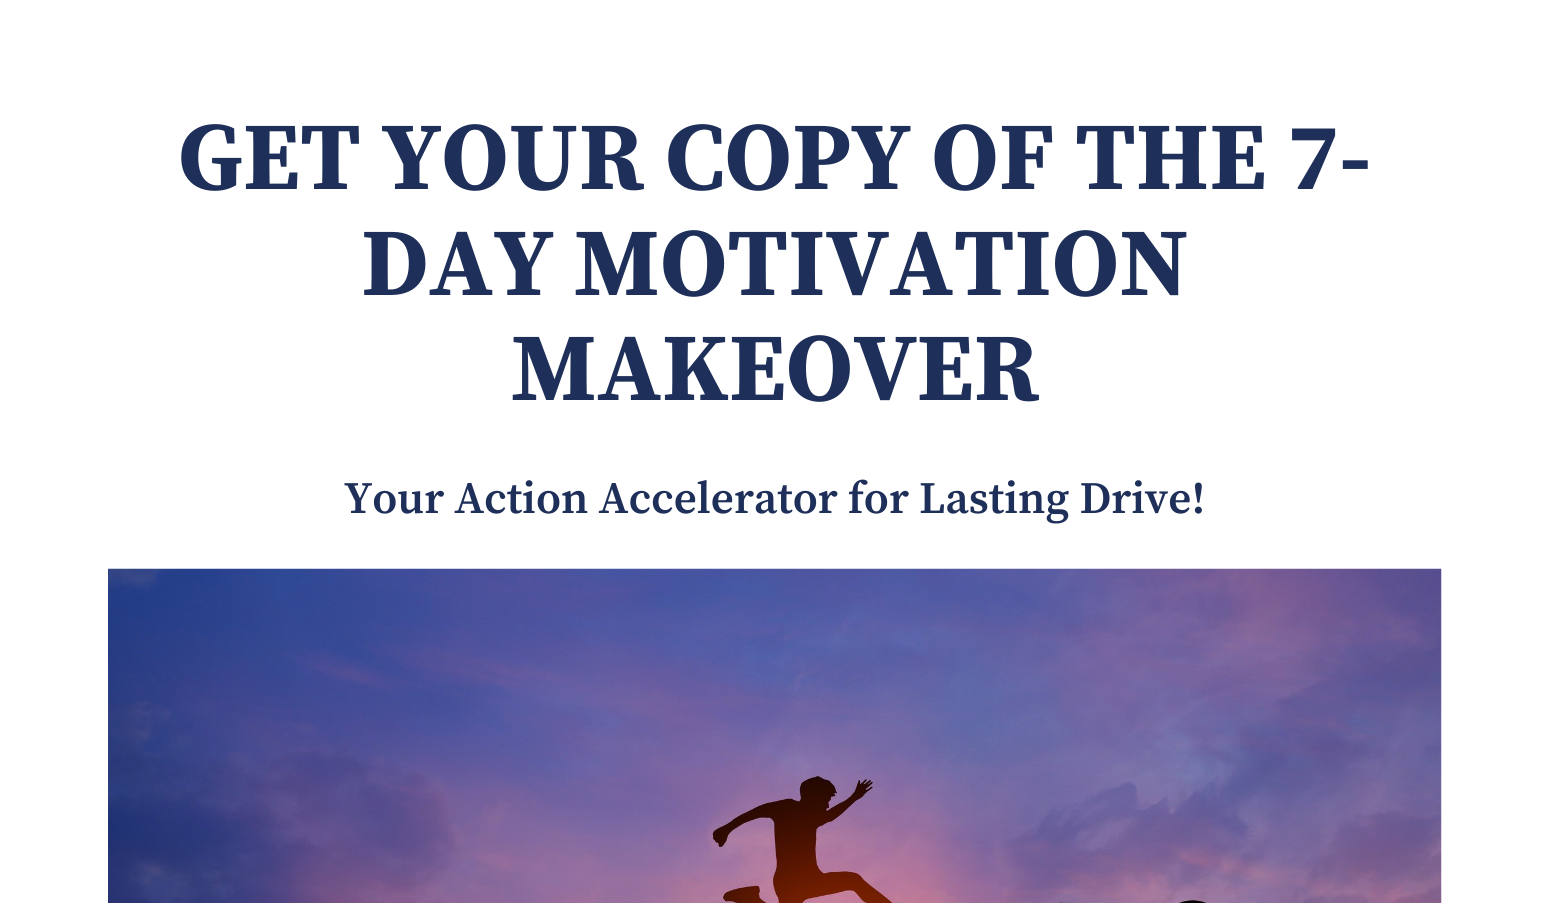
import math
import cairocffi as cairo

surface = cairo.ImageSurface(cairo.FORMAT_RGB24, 1549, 903)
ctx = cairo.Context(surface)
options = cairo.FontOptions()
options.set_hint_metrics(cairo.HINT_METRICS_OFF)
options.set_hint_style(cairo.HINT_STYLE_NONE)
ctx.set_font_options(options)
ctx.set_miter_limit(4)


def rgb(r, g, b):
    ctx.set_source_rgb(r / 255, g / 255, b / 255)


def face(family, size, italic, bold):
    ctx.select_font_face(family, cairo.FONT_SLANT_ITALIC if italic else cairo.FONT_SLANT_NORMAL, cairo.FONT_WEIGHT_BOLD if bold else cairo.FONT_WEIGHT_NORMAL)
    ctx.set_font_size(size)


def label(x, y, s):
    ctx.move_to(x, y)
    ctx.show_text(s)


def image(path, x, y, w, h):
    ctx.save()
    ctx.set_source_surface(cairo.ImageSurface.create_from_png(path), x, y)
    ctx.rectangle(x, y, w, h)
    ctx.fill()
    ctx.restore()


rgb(255, 255, 255)
ctx.paint()
face('Source Serif Pro', 96, 0, 1)
rgb(30, 47, 89)
label(178, 189, 'GET YOUR COPY OF THE 7-')
label(361, 295, 'DAY MOTIVATION')
label(511, 400, 'MAKEOVER')
face('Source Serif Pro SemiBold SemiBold', 45, 0, 0)
label(344, 513, 'Your Action Accelerator for Lasting Drive!')
image('image0.png', 108, 568, 1334, 335)
surface.write_to_png('render.png')
